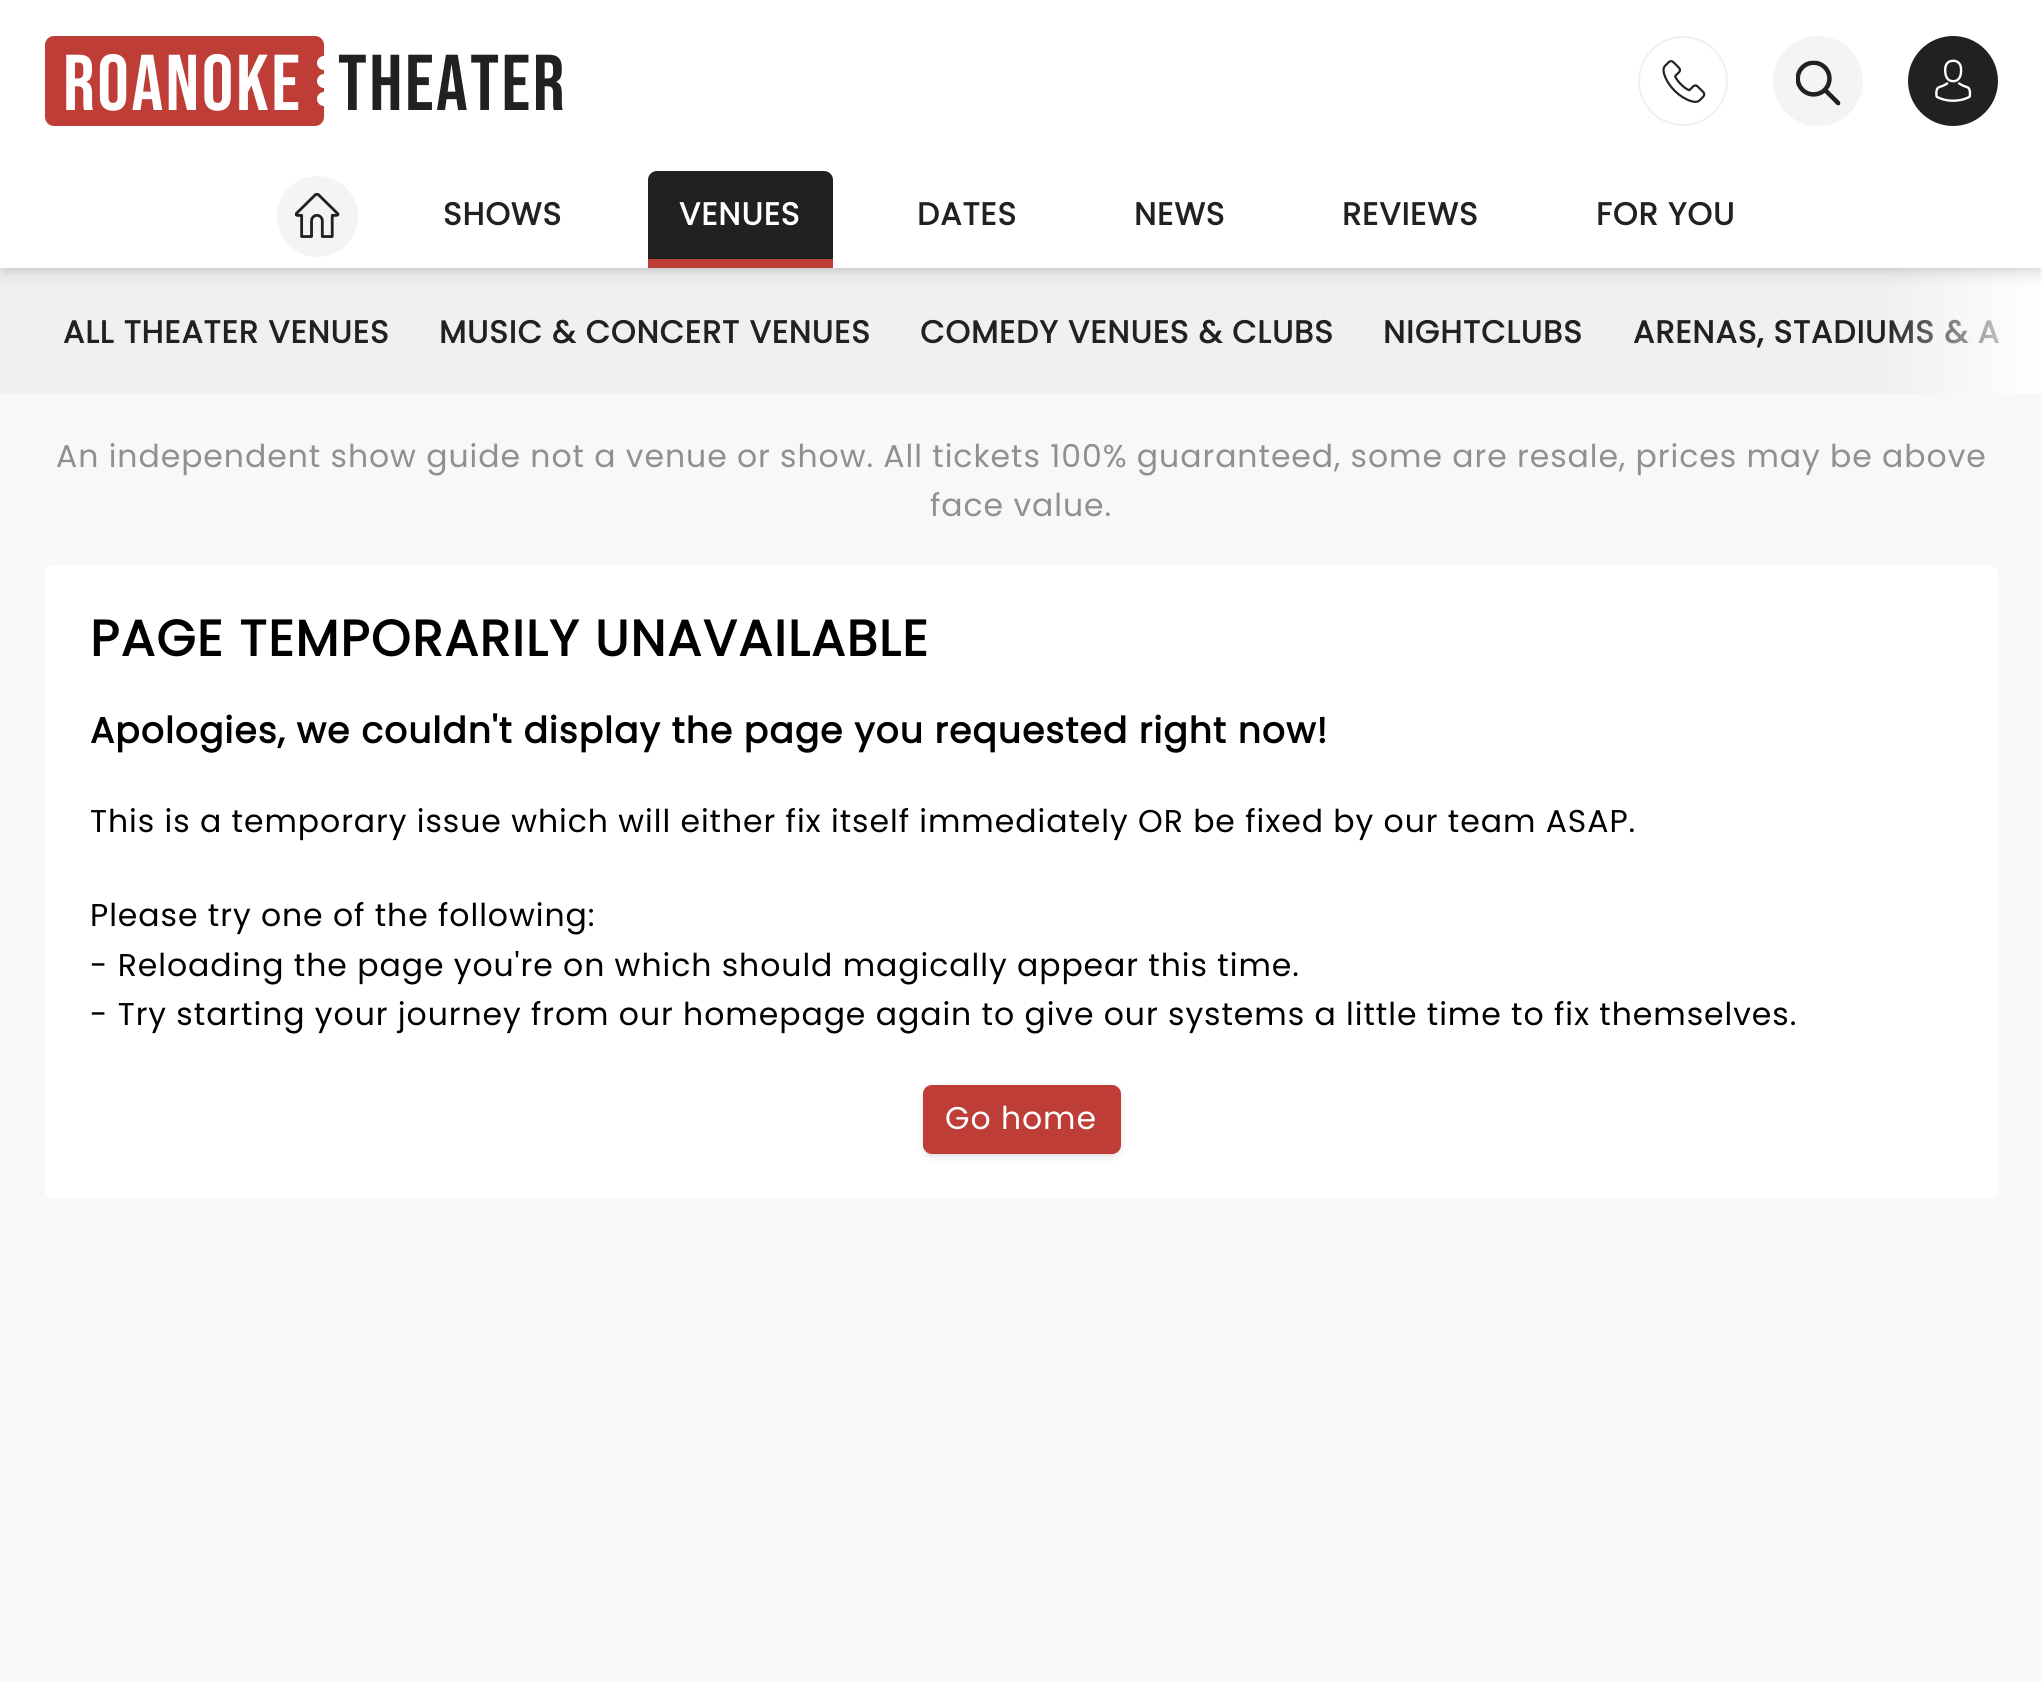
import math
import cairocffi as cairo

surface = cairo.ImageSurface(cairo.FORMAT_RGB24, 2042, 1682)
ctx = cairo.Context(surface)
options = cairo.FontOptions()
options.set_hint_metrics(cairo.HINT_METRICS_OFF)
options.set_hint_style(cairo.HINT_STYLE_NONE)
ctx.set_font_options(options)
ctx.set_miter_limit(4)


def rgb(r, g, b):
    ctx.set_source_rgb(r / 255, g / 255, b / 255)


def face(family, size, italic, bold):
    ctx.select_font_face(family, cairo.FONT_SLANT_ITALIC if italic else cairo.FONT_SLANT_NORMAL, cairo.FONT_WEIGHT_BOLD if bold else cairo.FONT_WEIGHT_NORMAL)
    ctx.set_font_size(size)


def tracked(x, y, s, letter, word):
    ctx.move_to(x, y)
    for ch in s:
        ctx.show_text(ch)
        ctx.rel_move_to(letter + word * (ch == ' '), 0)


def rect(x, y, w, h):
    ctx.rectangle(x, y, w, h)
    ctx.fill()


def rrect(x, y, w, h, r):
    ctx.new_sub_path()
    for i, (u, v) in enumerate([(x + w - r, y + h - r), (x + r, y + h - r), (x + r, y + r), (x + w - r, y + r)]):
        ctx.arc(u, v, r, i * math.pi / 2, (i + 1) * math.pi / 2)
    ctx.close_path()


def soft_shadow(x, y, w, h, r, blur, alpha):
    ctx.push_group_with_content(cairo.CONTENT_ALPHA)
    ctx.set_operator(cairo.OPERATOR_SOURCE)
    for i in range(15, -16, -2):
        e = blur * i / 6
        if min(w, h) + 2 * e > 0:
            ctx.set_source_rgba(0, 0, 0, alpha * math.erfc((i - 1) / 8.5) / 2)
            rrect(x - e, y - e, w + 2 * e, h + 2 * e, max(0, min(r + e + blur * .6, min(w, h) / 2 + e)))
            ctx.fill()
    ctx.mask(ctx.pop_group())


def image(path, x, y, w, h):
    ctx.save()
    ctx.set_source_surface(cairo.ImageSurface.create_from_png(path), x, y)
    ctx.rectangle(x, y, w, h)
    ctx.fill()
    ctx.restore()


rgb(248, 248, 248)
ctx.paint()
rgb(240, 240, 240)
rect(0, 268, 2042, 126)
face('Poppins', 31.5, 0, 1)
rgb(33, 33, 32)
tracked(1633, 343, 'ARENAS, STADIUMS & A', 0.94, 0)
gradient = cairo.LinearGradient(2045, 331, 1883, 331)
gradient.add_color_stop_rgba(0, 1, 1, 1, 1)
gradient.add_color_stop_rgba(1, 1, 1, 1, 0)
ctx.set_source(gradient)
rect(1889, 268, 153, 126)
rgb(0, 0, 0)
soft_shadow(5, 135, 2034, 133, 0, 4.5, 0.1)
soft_shadow(2, 137, 2039, 138, 0, 7, 0.1)
rgb(255, 255, 255)
rect(0, 0, 2042, 268)
rgb(191, 61, 55)
rrect(45, 36, 279, 90, 9)
ctx.fill()
face('Bebas Neue', 79, 0, 0)
rgb(255, 255, 255)
tracked(63, 110, 'Roanoke', 2.5, 0)
ctx.new_path()
ctx.arc(324, 63, 7, 0, 2 * math.pi)
ctx.fill()
ctx.arc(324, 81, 7, 0, 2 * math.pi)
ctx.fill()
ctx.arc(324, 99, 7, 0, 2 * math.pi)
ctx.fill()
rgb(33, 33, 32)
tracked(338, 110, 'Theater', 2.5, 0)
ctx.new_path()
ctx.arc(1683, 81, 44, 0, 2 * math.pi)
rgb(240, 240, 240)
ctx.stroke()
image('image0.png', 1662, 60, 44, 43)
rgb(244, 244, 244)
ctx.arc(1818, 81, 45, 0, 2 * math.pi)
ctx.fill()
image('image1.png', 1796, 60, 45, 46)
rgb(33, 33, 32)
ctx.arc(1953, 81, 45, 0, 2 * math.pi)
ctx.fill()
image('image2.png', 1935, 59, 37, 43)
rgb(244, 244, 244)
ctx.arc(317.5, 216.5, 40.5, 0, 2 * math.pi)
ctx.fill()
image('image3.png', 295, 192, 45, 46)
face('Poppins', 31.5, 0, 1)
rgb(33, 33, 32)
tracked(443, 225, 'SHOWS', 0.94, 0)
ctx.new_path()
ctx.move_to(657, 171)
ctx.line_to(824, 171)
ctx.curve_to(829, 171, 833, 175, 833, 180)
ctx.line_to(833, 259)
ctx.line_to(648, 259)
ctx.line_to(648, 180)
ctx.curve_to(648, 175, 652, 171, 657, 171)
ctx.close_path()
ctx.fill()
rgb(191, 61, 55)
rect(648, 259, 185, 9)
rgb(255, 255, 255)
tracked(679, 225, 'VENUES', 0.94, 0)
rgb(33, 33, 32)
tracked(917, 225, 'DATES', 0.94, 0)
tracked(1134, 225, 'NEWS', 0.94, 0)
tracked(1342, 225, 'REVIEWS', 0.94, 0)
tracked(1596, 225, 'FOR YOU', 0.94, 0)
tracked(63, 343, 'ALL THEATER VENUES', 0.94, 0)
tracked(439, 343, 'MUSIC & CONCERT VENUES', 0.94, 0)
tracked(920, 343, 'COMEDY VENUES & CLUBS', 0.94, 0)
tracked(1383, 343, 'NIGHTCLUBS', 0.94, 0)
face('Poppins', 31.5, 0, 0)
rgb(144, 144, 143)
tracked(56, 467, 'An independent show guide not a venue or show. All tickets 100% guaranteed, some are resale, prices may be above', 0.94, 0)
tracked(930, 516, 'face value.', 0.94, 0)
rgb(255, 255, 255)
rrect(45, 565, 1953, 634, 9)
ctx.fill()
face('Poppins', 50.4, 0, 1)
rgb(0, 0, 0)
tracked(90, 656, 'PAGE TEMPORARILY UNAVAILABLE', 1.5, 0)
face('Poppins', 36, 0, 1)
tracked(90, 743, 'Apologies, we couldn\'t display the page you requested right now!', 1.08, 0)
face('Poppins', 31.5, 0, 0)
tracked(90, 832, 'This is a temporary issue which will either fix itself immediately OR be fixed by our team ASAP.', 0.94, 0)
tracked(90, 926, 'Please try one of the following:', 0.94, 0)
tracked(90, 976, '- Reloading the page you\'re on which should magically appear this time.', 0.94, 0)
tracked(90, 1025, '- Try starting your journey from our homepage again to give our systems a little time to fix themselves.', 0.94, 0)
rgb(0, 0, 0)
soft_shadow(925, 1089, 193, 65, 7, 2, 0.1)
soft_shadow(923, 1087, 198, 70, 9, 3.5, 0.1)
rgb(191, 61, 55)
rrect(923, 1085, 198, 69, 9)
ctx.fill()
rgb(255, 255, 255)
tracked(945, 1129, 'Go home', 0.94, 0)
surface.write_to_png('render.png')
